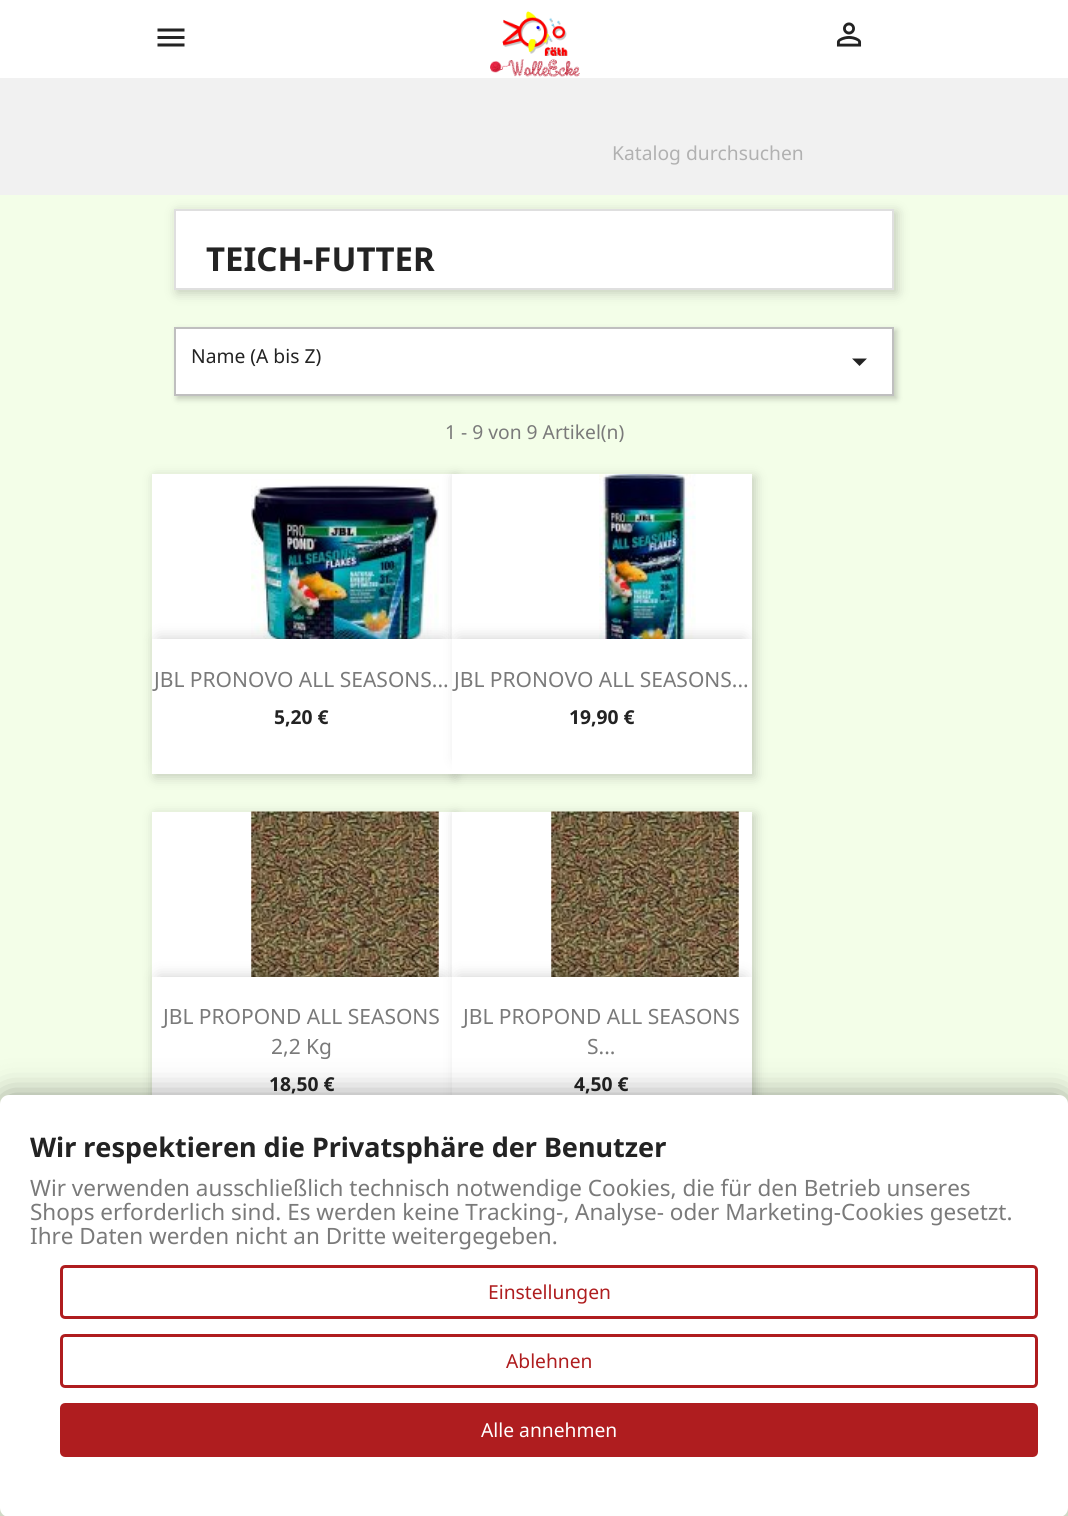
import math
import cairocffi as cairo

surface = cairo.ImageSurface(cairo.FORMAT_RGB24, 1068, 1516)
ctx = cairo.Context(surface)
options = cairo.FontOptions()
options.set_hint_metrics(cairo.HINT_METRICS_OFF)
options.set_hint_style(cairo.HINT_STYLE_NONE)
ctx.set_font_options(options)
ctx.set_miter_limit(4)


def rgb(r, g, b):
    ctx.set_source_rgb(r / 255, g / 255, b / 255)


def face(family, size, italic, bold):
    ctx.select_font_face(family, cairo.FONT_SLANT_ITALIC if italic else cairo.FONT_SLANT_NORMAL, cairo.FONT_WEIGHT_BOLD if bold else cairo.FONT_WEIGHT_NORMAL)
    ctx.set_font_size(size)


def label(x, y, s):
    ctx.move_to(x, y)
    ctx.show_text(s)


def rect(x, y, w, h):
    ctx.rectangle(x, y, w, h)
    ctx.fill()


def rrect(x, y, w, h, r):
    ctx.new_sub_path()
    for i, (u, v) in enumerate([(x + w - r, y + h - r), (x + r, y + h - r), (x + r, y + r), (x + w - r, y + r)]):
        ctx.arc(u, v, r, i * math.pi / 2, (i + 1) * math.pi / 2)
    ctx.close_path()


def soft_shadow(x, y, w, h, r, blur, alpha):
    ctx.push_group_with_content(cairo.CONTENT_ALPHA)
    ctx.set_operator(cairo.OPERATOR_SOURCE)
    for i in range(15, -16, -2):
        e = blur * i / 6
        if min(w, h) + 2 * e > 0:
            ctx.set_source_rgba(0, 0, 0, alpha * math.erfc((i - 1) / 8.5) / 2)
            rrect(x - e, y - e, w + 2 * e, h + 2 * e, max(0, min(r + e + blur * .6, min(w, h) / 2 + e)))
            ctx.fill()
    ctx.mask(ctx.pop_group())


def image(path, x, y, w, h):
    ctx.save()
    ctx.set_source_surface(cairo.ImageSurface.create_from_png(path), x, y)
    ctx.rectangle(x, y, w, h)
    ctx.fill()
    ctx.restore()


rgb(241, 241, 241)
ctx.paint()
rgb(255, 255, 255)
rect(0, 0, 1068, 78)
image('image0.png', 157, 28, 28, 19)
image('image1.png', 490, 11, 90, 66)
image('image2.png', 836, 22, 26, 25)
face('Noto Sans', 19.25, 0, 0)
rgb(177, 177, 177)
label(612, 160, 'Katalog durchsuchen')
rgb(243, 254, 232)
rect(0, 195, 1068, 1321)
rgb(0, 0, 0)
soft_shadow(177, 212, 720, 81, 0, 6, 0.2)
rgb(255, 255, 255)
ctx.rectangle(175, 210, 718, 79)
ctx.fill_preserve()
rgb(223, 223, 223)
ctx.stroke()
face('Noto Sans', 33, 0, 1)
rgb(35, 35, 35)
label(206, 271, 'TEICH-FUTTER')
rgb(0, 0, 0)
soft_shadow(177, 330, 720, 69, 0, 3, 0.2)
rgb(255, 255, 255)
ctx.rectangle(175, 328, 718, 67)
ctx.fill_preserve()
rgb(191, 191, 191)
ctx.stroke()
face('Noto Sans', 19.25, 0, 0)
rgb(35, 35, 35)
label(191, 363, 'Name (A bis Z)')
ctx.new_path()
ctx.move_to(852, 358.5)
ctx.line_to(867, 358.5)
ctx.line_to(859.5, 366)
ctx.close_path()
ctx.fill()
rgb(122, 122, 122)
label(445, 439, '1 - 9 von 9 Artikel(n)')
rgb(0, 0, 0)
soft_shadow(155, 477, 300, 300, 0, 6, 0.2)
rgb(255, 255, 255)
rect(152, 474, 300, 165)
image('image3.png', 251, 479, 188, 160)
rgb(0, 0, 0)
soft_shadow(455, 477, 300, 300, 0, 6, 0.2)
rgb(255, 255, 255)
rect(452, 474, 300, 165)
rgb(0, 0, 0)
soft_shadow(159, 639, 285, 120, 0, 7.5, 0.2)
rgb(255, 255, 255)
rect(152, 639, 300, 135)
face('Noto Sans', 21, 0, 0)
rgb(122, 122, 122)
label(154, 687, 'JBL PRONOVO ALL SEASONS...')
face('Noto Sans', 19.25, 0, 1)
rgb(35, 35, 35)
label(274, 724, '5,20 €')
image('image4.png', 599, 474, 97, 165)
rgb(0, 0, 0)
soft_shadow(459, 639, 285, 120, 0, 7.5, 0.2)
rgb(255, 255, 255)
rect(452, 639, 300, 135)
face('Noto Sans', 21, 0, 0)
rgb(122, 122, 122)
label(454, 687, 'JBL PRONOVO ALL SEASONS...')
face('Noto Sans', 19.25, 0, 1)
rgb(35, 35, 35)
label(569, 724, '19,90 €')
rgb(0, 0, 0)
soft_shadow(155, 815, 300, 300, 0, 6, 0.2)
rgb(255, 255, 255)
rect(152, 812, 300, 165)
image('image5.png', 251, 811, 188, 166)
rgb(0, 0, 0)
soft_shadow(455, 815, 300, 300, 0, 6, 0.2)
rgb(255, 255, 255)
rect(452, 812, 300, 165)
rgb(0, 0, 0)
soft_shadow(159, 977, 285, 120, 0, 7.5, 0.2)
rgb(255, 255, 255)
rect(152, 977, 300, 118)
face('Noto Sans', 21, 0, 0)
rgb(122, 122, 122)
label(163, 1024, 'JBL PROPOND ALL SEASONS')
label(271, 1054, '2,2 Kg')
face('Noto Sans', 19.25, 0, 1)
rgb(35, 35, 35)
label(269, 1091, '18,50 €')
image('image5.png', 551, 811, 188, 166)
rgb(0, 0, 0)
soft_shadow(459, 977, 285, 120, 0, 7.5, 0.2)
rgb(255, 255, 255)
rect(452, 977, 300, 118)
face('Noto Sans', 21, 0, 0)
rgb(122, 122, 122)
label(463, 1024, 'JBL PROPOND ALL SEASONS')
label(587, 1054, 'S...')
face('Noto Sans', 19.25, 0, 1)
rgb(35, 35, 35)
label(574, 1091, '4,50 €')
rgb(0, 0, 0)
soft_shadow(0, 1095, 1068, 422, 9, 15, 0.4)
rgb(255, 255, 255)
rrect(0, 1095, 1068, 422, 9)
ctx.fill()
face('Noto Sans', 27, 0, 1)
rgb(35, 35, 35)
label(30, 1157, 'Wir respektieren die Privatsphäre der Benutzer')
face('Noto Sans', 22.5, 0, 0)
rgb(122, 122, 122)
label(30, 1196, 'Wir verwenden ausschließlich technisch notwendige Cookies, die für den Betrieb unseres')
label(30, 1220, 'Shops erforderlich sind. Es werden keine Tracking-, Analyse- oder Marketing-Cookies gesetzt.')
label(30, 1244, 'Ihre Daten werden nicht an Dritte weitergegeben.')
rrect(61.5, 1266.5, 975, 51, 3.5)
rgb(175, 29, 31)
ctx.set_line_width(3)
ctx.stroke()
face('Noto Sans', 19.25, 0, 0)
label(488, 1299, 'Einstellungen')
rrect(61.5, 1335.5, 975, 51, 3.5)
ctx.stroke()
label(506, 1368, 'Ablehnen')
rrect(61.5, 1404.5, 975, 51, 3.5)
ctx.fill_preserve()
ctx.stroke()
rgb(255, 255, 255)
label(481, 1437, 'Alle annehmen')
surface.write_to_png('render.png')
